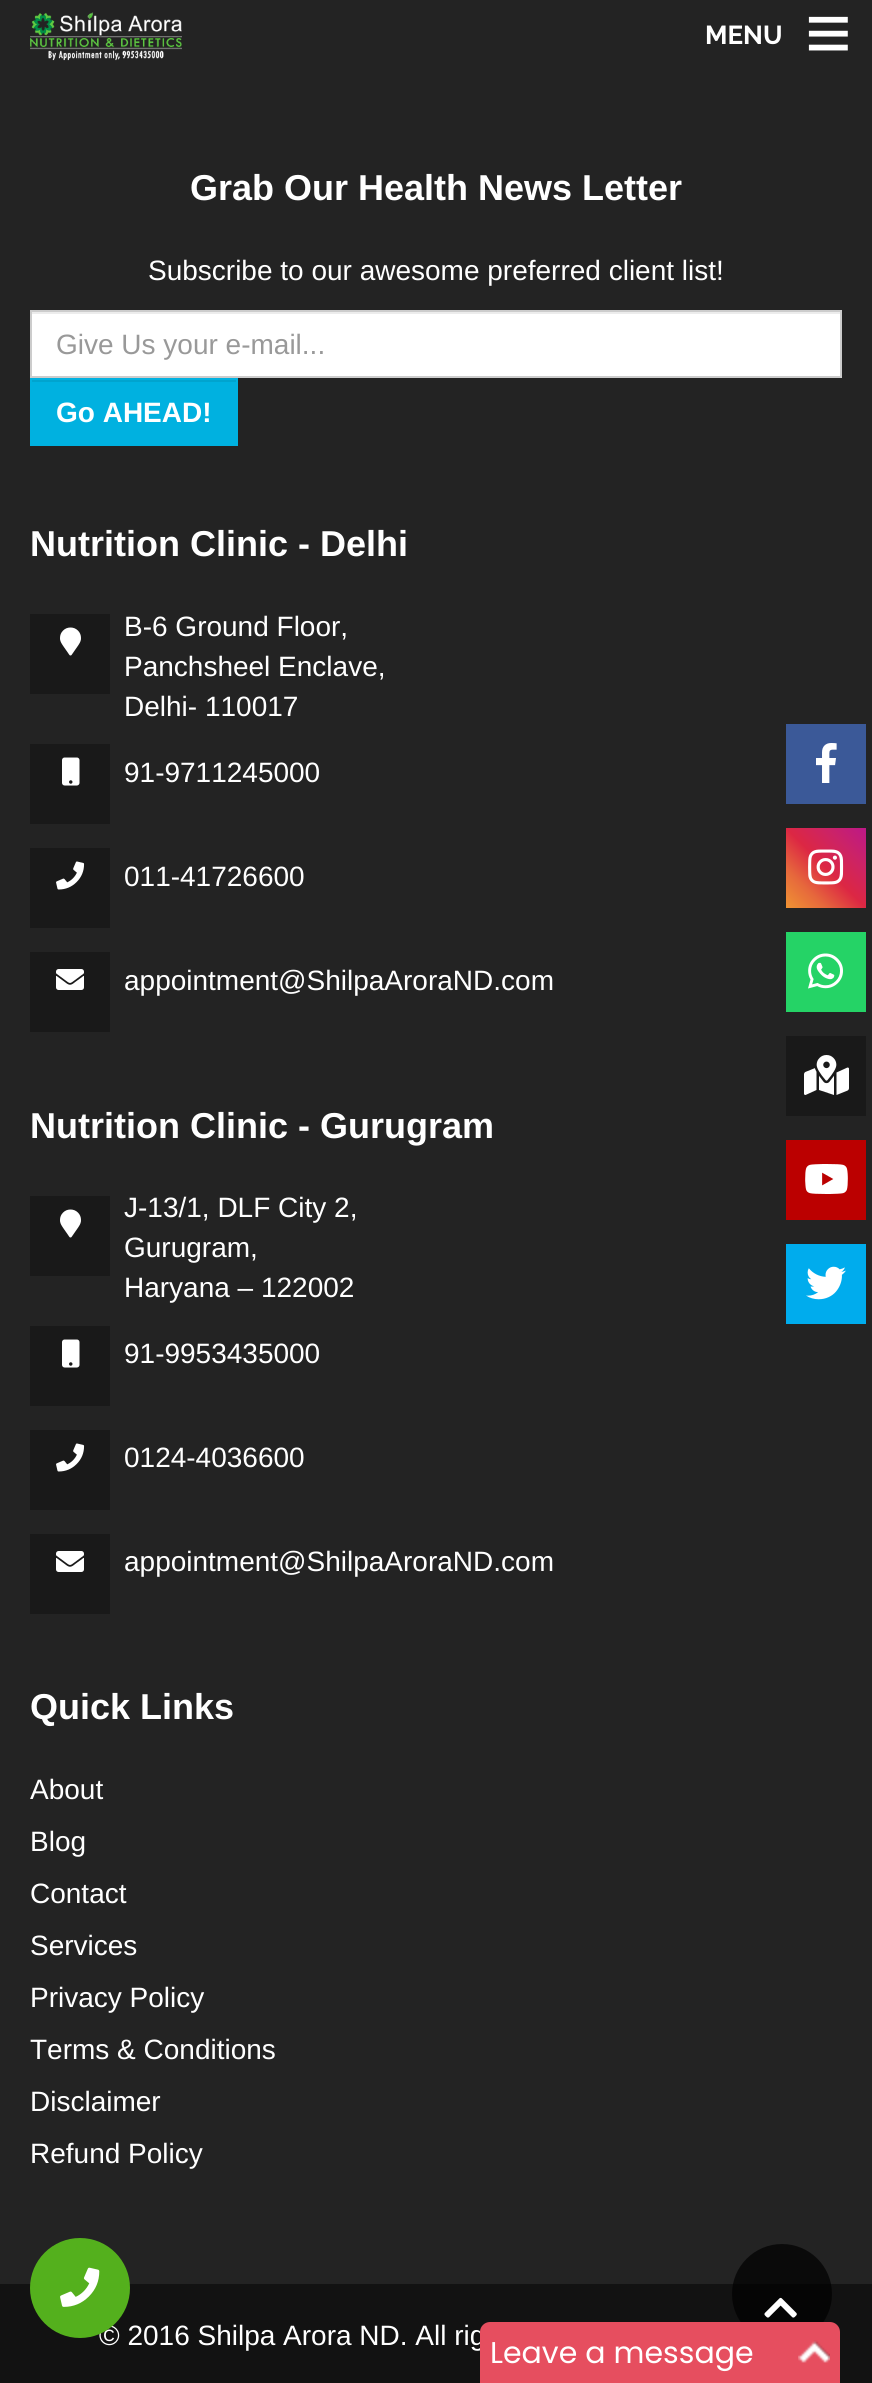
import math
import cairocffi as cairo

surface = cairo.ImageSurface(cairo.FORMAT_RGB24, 872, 2383)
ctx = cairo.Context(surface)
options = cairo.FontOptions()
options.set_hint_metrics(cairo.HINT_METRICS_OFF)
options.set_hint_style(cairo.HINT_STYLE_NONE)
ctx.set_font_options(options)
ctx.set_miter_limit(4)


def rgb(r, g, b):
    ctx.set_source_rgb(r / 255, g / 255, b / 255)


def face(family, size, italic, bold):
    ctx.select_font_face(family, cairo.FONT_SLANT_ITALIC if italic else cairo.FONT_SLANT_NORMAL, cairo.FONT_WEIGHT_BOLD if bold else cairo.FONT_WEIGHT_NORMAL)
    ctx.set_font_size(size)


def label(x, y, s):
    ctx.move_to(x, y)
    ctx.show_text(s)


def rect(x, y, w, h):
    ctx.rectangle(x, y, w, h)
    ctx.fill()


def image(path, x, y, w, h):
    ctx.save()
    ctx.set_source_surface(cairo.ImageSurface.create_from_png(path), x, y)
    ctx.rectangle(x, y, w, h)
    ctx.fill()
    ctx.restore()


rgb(35, 35, 35)
ctx.paint()
image('image0.png', 30, 12, 152, 49)
face('Raleway', 26, 0, 1)
rgb(255, 255, 255)
label(705, 44, 'MENU')
face('Liberation Sans', 80, 0, 1)
label(805, 60, '≡')
face('Liberation Sans', 36, 0, 1)
label(190, 200, 'Grab Our Health News Letter')
face('Liberation Sans', 28, 0, 0)
label(148, 280, 'Subscribe to our awesome preferred client list!')
rect(32, 314, 808, 62)
rgb(236, 236, 236)
rect(32, 312, 808, 2)
ctx.rectangle(31, 311, 810, 66)
rgb(204, 204, 204)
ctx.stroke()
rgb(153, 153, 153)
label(56, 354, 'Give Us your e-mail...')
rgb(0, 177, 224)
rect(30, 378, 208, 68)
rgb(0, 164, 207)
rect(32, 380, 204, 2)
face('Liberation Sans', 28, 0, 1)
rgb(255, 255, 255)
label(56, 422, 'Go AHEAD!')
face('Liberation Sans', 36, 0, 1)
label(30, 556, 'Nutrition Clinic - Delhi')
rgb(25, 25, 25)
rect(30, 614, 80, 80)
image('image1.png', 60, 627, 21, 29)
face('Liberation Sans', 28, 0, 0)
rgb(255, 255, 255)
label(124, 636, 'B-6 Ground Floor,')
label(124, 676, 'Panchsheel Enclave,')
label(124, 716, 'Delhi- 110017')
rgb(25, 25, 25)
rect(30, 744, 80, 80)
image('image2.png', 62, 757, 18, 29)
rgb(255, 255, 255)
label(124, 782, '91-9711245000')
rgb(25, 25, 25)
rect(30, 848, 80, 80)
image('image3.png', 56, 861, 29, 29)
rgb(255, 255, 255)
label(124, 886, '011-41726600')
rgb(25, 25, 25)
rect(30, 952, 80, 80)
image('image4.png', 56, 969, 28, 21)
rgb(255, 255, 255)
label(124, 990, 'appointment@ShilpaAroraND.com')
face('Liberation Sans', 36, 0, 1)
label(30, 1138, 'Nutrition Clinic - Gurugram')
rgb(25, 25, 25)
rect(30, 1196, 80, 80)
image('image1.png', 60, 1209, 21, 29)
face('Liberation Sans', 28, 0, 0)
rgb(255, 255, 255)
label(124, 1217, 'J-13/1, DLF City 2,')
label(124, 1257, 'Gurugram,')
label(124, 1297, 'Haryana – 122002')
rgb(25, 25, 25)
rect(30, 1326, 80, 80)
image('image2.png', 62, 1339, 18, 29)
rgb(255, 255, 255)
label(124, 1363, '91-9953435000')
rgb(25, 25, 25)
rect(30, 1430, 80, 80)
image('image3.png', 56, 1443, 29, 29)
rgb(255, 255, 255)
label(124, 1467, '0124-4036600')
rgb(25, 25, 25)
rect(30, 1534, 80, 80)
image('image4.png', 56, 1551, 28, 21)
rgb(255, 255, 255)
label(124, 1571, 'appointment@ShilpaAroraND.com')
face('Liberation Sans', 36, 0, 1)
label(30, 1719, 'Quick Links')
face('Liberation Sans', 28, 0, 0)
label(30, 1799, 'About')
label(30, 1851, 'Blog')
label(30, 1903, 'Contact')
label(30, 1955, 'Services')
label(30, 2007, 'Privacy Policy')
label(30, 2059, 'Terms & Conditions')
label(30, 2111, 'Disclaimer')
label(30, 2163, 'Refund Policy')
rgb(59, 89, 152)
rect(786, 724, 80, 80)
image('image5.png', 816, 743, 21, 40)
gradient = cairo.LinearGradient(786, 908, 866, 828)
gradient.add_color_stop_rgba(0, 0.941, 0.58, 0.2, 1)
gradient.add_color_stop_rgba(0.25, 0.902, 0.408, 0.235, 1)
gradient.add_color_stop_rgba(0.5, 0.863, 0.153, 0.263, 1)
gradient.add_color_stop_rgba(0.75, 0.8, 0.137, 0.4, 1)
gradient.add_color_stop_rgba(1, 0.737, 0.094, 0.533, 1)
ctx.set_source(gradient)
rect(786, 828, 80, 80)
image('image6.png', 808, 849, 36, 36)
rgb(37, 211, 102)
rect(786, 932, 80, 80)
image('image7.png', 808, 953, 35, 36)
rgb(25, 25, 25)
rect(786, 1036, 80, 80)
image('image8.png', 804, 1055, 45, 40)
rgb(187, 0, 0)
rect(786, 1140, 80, 80)
image('image9.png', 805, 1164, 43, 30)
rgb(0, 172, 237)
rect(786, 1244, 80, 80)
image('image10.png', 806, 1266, 40, 34)
rgb(18, 18, 18)
rect(0, 2284, 872, 99)
rgb(255, 255, 255)
label(99, 2345, '© 2016 Shilpa Arora ND. All rig')
rgb(84, 176, 29)
ctx.new_path()
ctx.arc(80, 2288, 50, 0, 2 * math.pi)
ctx.fill()
image('image11.png', 60, 2267, 40, 40)
ctx.set_source_rgba(0, 0, 0, 0.7)
ctx.arc(782, 2294, 50, 0, 2 * math.pi)
ctx.fill()
image('image12.png', 764, 2297, 33, 21)
rgb(230, 78, 95)
ctx.new_path()
ctx.move_to(490, 2322)
ctx.line_to(830, 2322)
ctx.curve_to(835.5, 2322, 840, 2326.5, 840, 2332)
ctx.line_to(840, 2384)
ctx.line_to(480, 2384)
ctx.line_to(480, 2332)
ctx.curve_to(480, 2326.5, 484.5, 2322, 490, 2322)
ctx.close_path()
ctx.fill()
face('Poppins', 30, 0, 0)
rgb(255, 255, 255)
label(490, 2363, 'Leave a message')
image('image13.png', 798, 2340, 32, 23)
surface.write_to_png('render.png')
